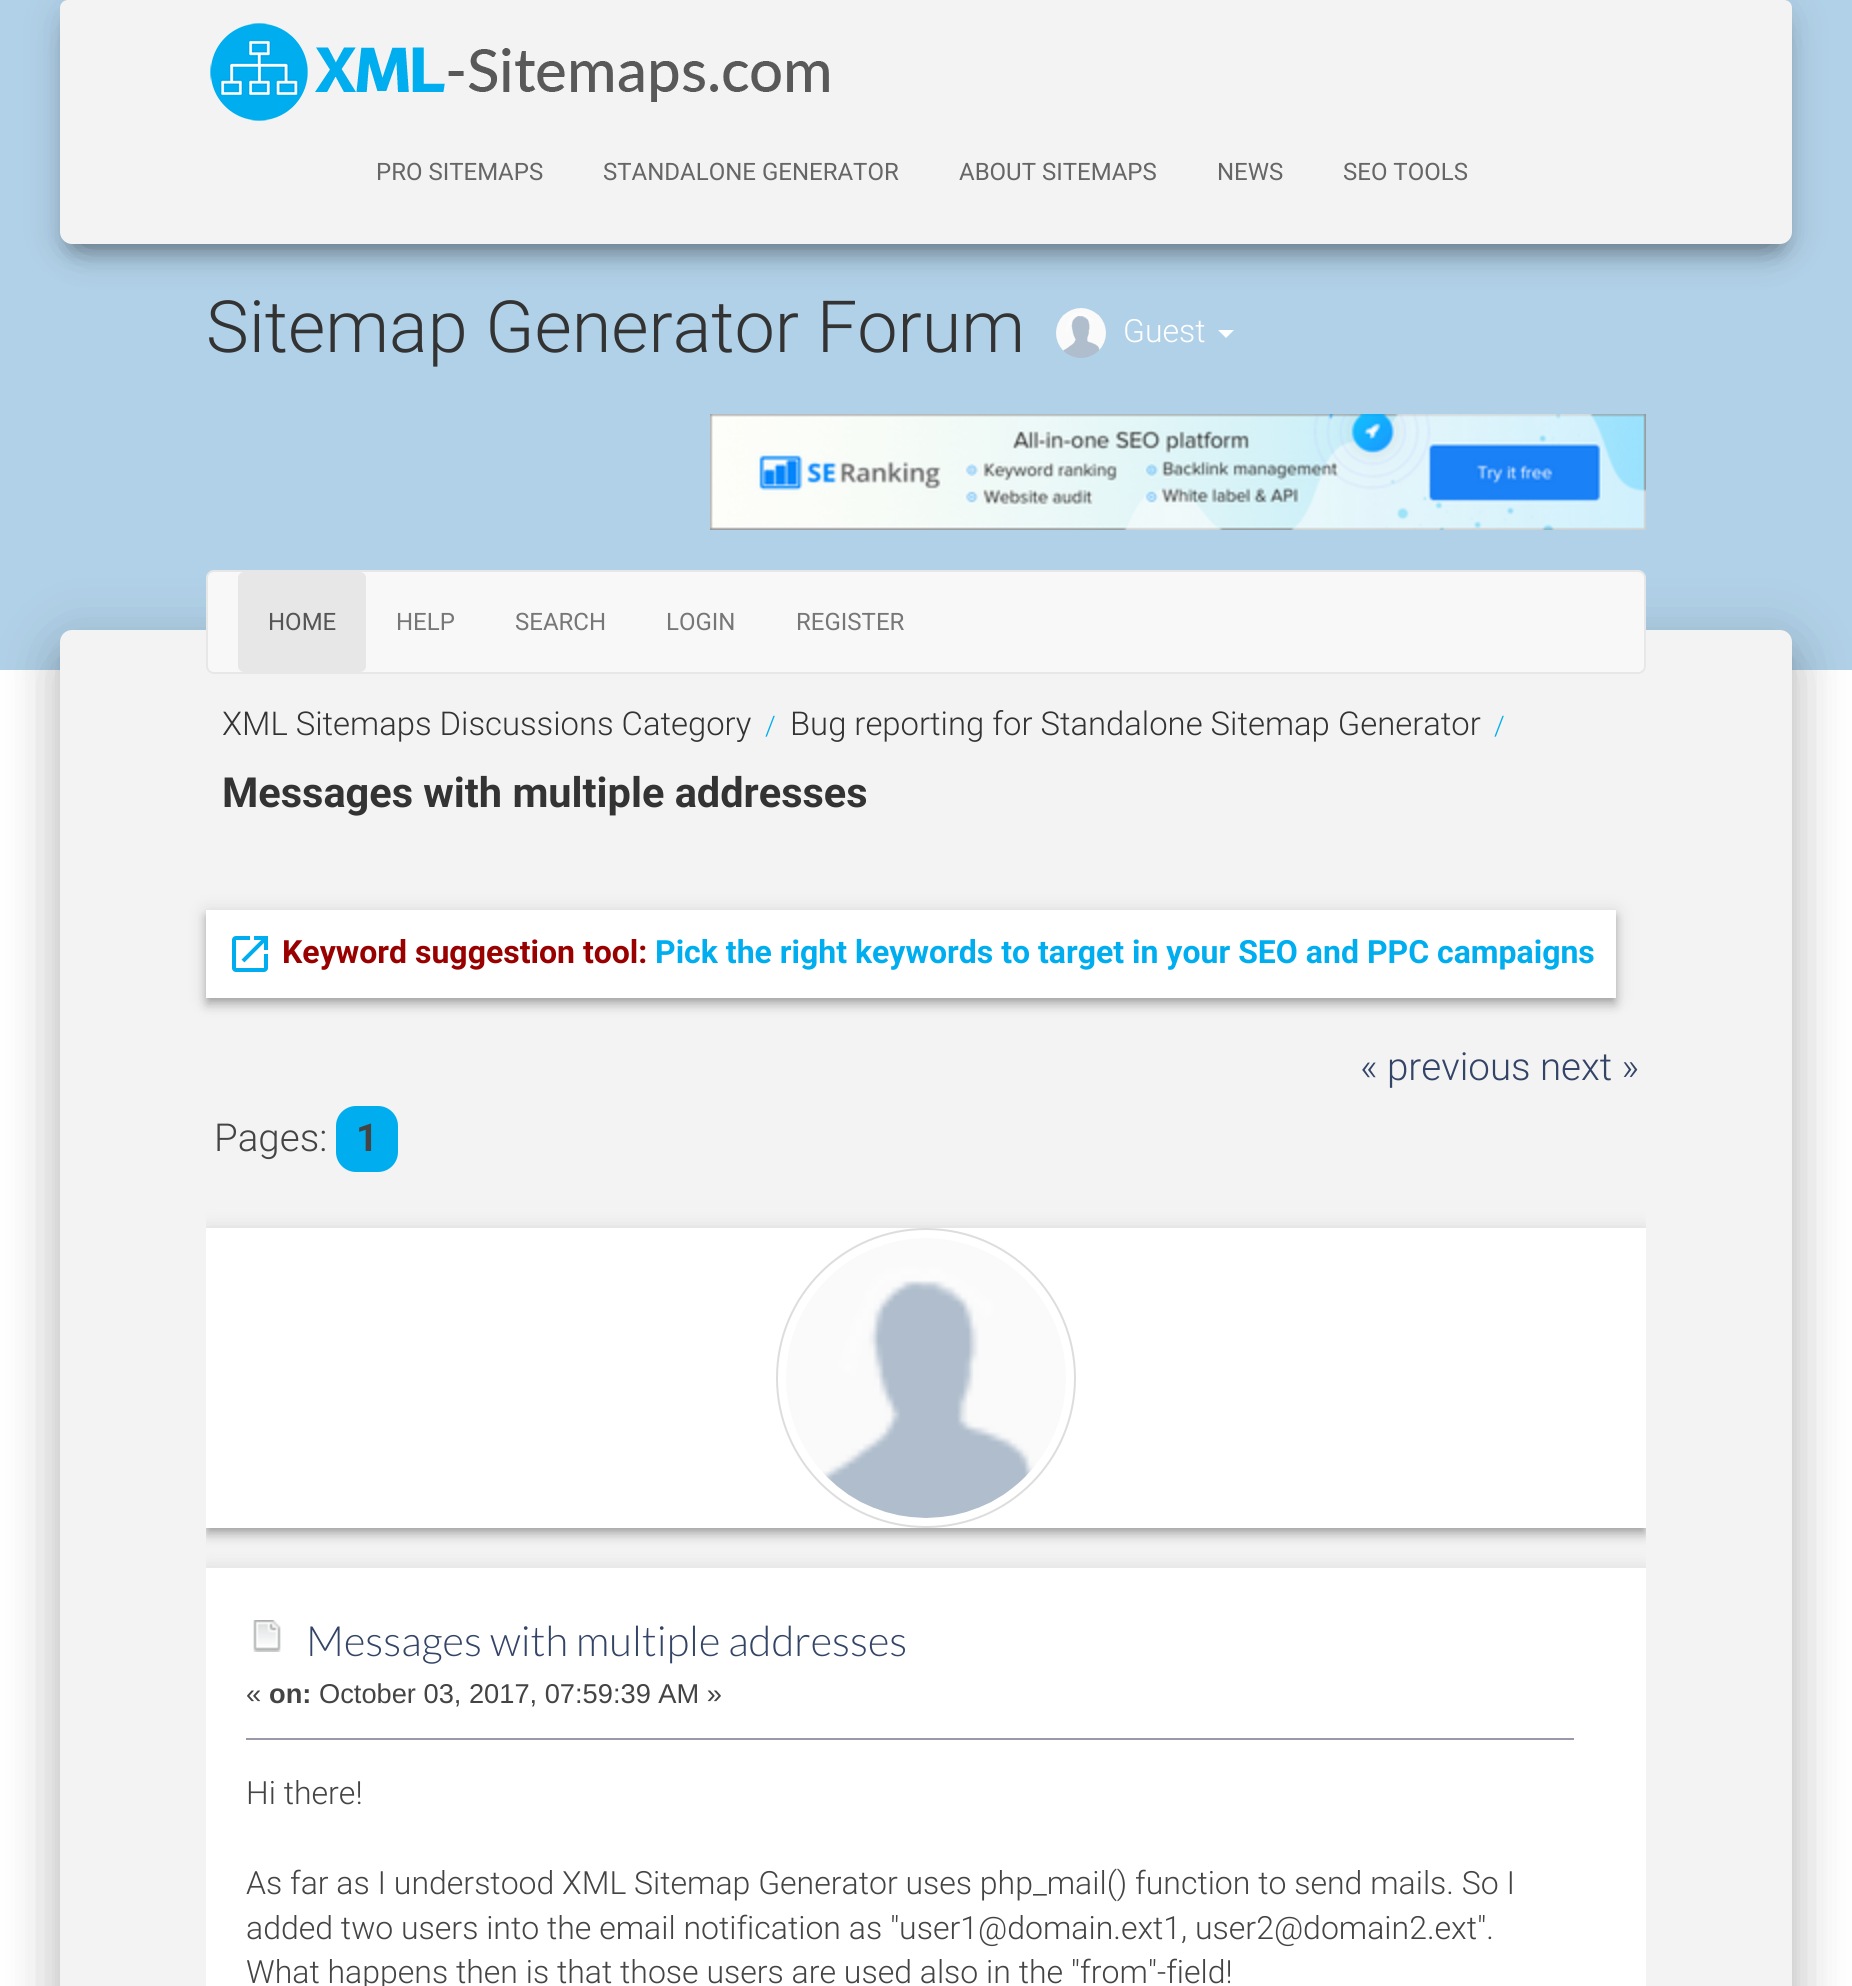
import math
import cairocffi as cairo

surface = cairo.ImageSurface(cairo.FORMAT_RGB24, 1852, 1986)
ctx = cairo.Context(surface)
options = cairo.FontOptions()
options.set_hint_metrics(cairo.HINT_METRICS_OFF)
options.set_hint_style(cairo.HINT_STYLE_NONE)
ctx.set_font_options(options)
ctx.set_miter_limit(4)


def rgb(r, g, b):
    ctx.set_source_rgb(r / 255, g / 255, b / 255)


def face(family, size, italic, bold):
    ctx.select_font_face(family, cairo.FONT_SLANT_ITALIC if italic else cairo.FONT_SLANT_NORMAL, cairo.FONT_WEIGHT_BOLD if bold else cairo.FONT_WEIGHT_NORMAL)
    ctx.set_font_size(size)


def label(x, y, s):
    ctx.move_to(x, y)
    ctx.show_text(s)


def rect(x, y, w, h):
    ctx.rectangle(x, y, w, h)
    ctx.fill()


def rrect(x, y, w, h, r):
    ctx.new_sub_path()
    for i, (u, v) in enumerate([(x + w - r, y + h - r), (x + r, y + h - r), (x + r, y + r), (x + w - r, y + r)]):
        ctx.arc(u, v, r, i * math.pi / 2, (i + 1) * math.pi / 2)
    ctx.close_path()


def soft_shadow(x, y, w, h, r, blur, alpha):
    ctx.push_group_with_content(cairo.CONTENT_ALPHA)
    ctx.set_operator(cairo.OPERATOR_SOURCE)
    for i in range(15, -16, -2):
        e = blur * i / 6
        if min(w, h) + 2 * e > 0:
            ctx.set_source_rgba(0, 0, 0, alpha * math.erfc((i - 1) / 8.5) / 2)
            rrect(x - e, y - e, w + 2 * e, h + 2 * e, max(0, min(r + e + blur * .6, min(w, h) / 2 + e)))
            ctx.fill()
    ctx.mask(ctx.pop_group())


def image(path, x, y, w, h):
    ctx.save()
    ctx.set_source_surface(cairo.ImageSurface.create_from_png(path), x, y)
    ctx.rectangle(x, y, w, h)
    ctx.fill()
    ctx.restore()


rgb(255, 255, 255)
ctx.paint()
rgb(177, 209, 232)
rect(0, 0, 1852, 670)
rgb(0, 0, 0)
soft_shadow(70, 26, 1712, 224, 2, 10, 0.2)
image('image1.png', 1056, 308, 50, 50)
soft_shadow(60, 6, 1732, 244, 12, 20, 0.12)
soft_shadow(84, 44, 1684, 196, 0, 20, 0.42)
rgb(243, 243, 243)
ctx.new_path()
ctx.move_to(68, 0)
ctx.line_to(1784, 0)
ctx.curve_to(1788.5, 0, 1792, 3.5, 1792, 8)
ctx.line_to(1792, 232)
ctx.curve_to(1792, 238.5, 1786.5, 244, 1780, 244)
ctx.line_to(72, 244)
ctx.curve_to(65.5, 244, 60, 238.5, 60, 232)
ctx.line_to(60, 8)
ctx.curve_to(60, 3.5, 63.5, 0, 68, 0)
ctx.close_path()
ctx.fill()
image('image0.png', 210, 23, 619, 98)
face('Roboto', 24, 0, 0)
rgb(102, 102, 102)
label(376, 180, 'PRO SITEMAPS')
label(603, 180, 'STANDALONE GENERATOR')
label(959, 180, 'ABOUT SITEMAPS')
label(1217, 180, 'NEWS')
label(1343, 180, 'SEO TOOLS')
face('Roboto Light', 72, 0, 0)
rgb(51, 51, 51)
label(206, 352, 'Sitemap Generator Forum')
face('Roboto Light', 32, 0, 0)
rgb(255, 255, 255)
label(1123, 342, 'Guest')
ctx.new_path()
ctx.move_to(1218, 330)
ctx.line_to(1234, 330)
ctx.line_to(1226, 338)
ctx.close_path()
ctx.fill()
image('image2.png', 710, 414, 936, 116)
rgb(0, 0, 0)
soft_shadow(70, 656, 1712, 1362, 2, 10, 0.2)
soft_shadow(50, 632, 1752, 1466, 22, 30, 0.12)
soft_shadow(56, 658, 1740, 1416, 16, 24, 0.14)
rgb(243, 243, 243)
rrect(60, 630, 1732, 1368, 12)
ctx.fill()
rgb(248, 248, 248)
rrect(207, 571, 1438, 102, 7)
ctx.fill_preserve()
rgb(231, 231, 231)
ctx.stroke()
rrect(238, 572, 128, 100, 6)
ctx.fill()
face('Roboto', 24, 0, 0)
rgb(85, 85, 85)
label(268, 630, 'HOME')
rgb(119, 119, 119)
label(396, 630, 'HELP')
label(515, 630, 'SEARCH')
label(666, 630, 'LOGIN')
label(796, 630, 'REGISTER')
face('Roboto Light', 32.8, 0, 0)
rgb(51, 51, 51)
label(222, 735, 'XML Sitemaps Discussions Category')
face('Roboto Light', 27, 0, 0)
rgb(0, 174, 239)
label(765, 735, '/')
face('Roboto Light', 32.8, 0, 0)
rgb(51, 51, 51)
label(790, 735, 'Bug reporting for Standalone Sitemap Generator')
face('Roboto Light', 27, 0, 0)
rgb(0, 174, 239)
label(1494, 735, '/')
face('Roboto', 41.5, 0, 1)
rgb(51, 51, 51)
label(222, 807, 'Messages with multiple addresses')
rgb(0, 0, 0)
soft_shadow(208, 916, 1406, 84, 0, 4, 0.2)
soft_shadow(206, 912, 1410, 88, 0, 10, 0.12)
soft_shadow(206, 918, 1410, 88, 0, 5, 0.14)
rgb(255, 255, 255)
rect(206, 910, 1410, 88)
image('image3.png', 232, 936, 36, 36)
face('Roboto', 32, 0, 1)
rgb(153, 0, 0)
label(282, 963, 'Keyword suggestion tool:')
rgb(0, 174, 239)
label(655, 963, 'Pick the right keywords to target in your SEO and PPC campaigns')
face('Roboto Light', 38.5, 0, 0)
rgb(51, 68, 102)
label(1360, 1080, '« previous next »')
rgb(68, 68, 68)
label(214, 1151, 'Pages:')
rgb(0, 174, 239)
rrect(336, 1106, 62, 66, 20)
ctx.fill()
face('Roboto', 38.5, 0, 1)
rgb(68, 68, 68)
label(356, 1151, '1')
ctx.save()
ctx.rectangle(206, 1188, 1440, 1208)
ctx.clip()
rgb(0, 0, 0)
soft_shadow(208, 1234, 1436, 296, 0, 4, 0.2)
soft_shadow(206, 1230, 1440, 300, 0, 10, 0.12)
soft_shadow(206, 1236, 1440, 300, 0, 5, 0.14)
ctx.restore()
rgb(255, 255, 255)
rect(206, 1228, 1440, 300)
ctx.arc(926, 1378, 149, 0, 2 * math.pi)
rgb(221, 221, 221)
ctx.stroke()
image('image4.png', 786, 1238, 280, 280)
ctx.save()
ctx.rectangle(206, 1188, 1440, 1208)
ctx.clip()
rgb(0, 0, 0)
soft_shadow(206, 1570, 1440, 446, 0, 10, 0.12)
ctx.restore()
rgb(255, 255, 255)
rect(206, 1568, 1440, 418)
image('image5.png', 253, 1620, 28, 32)
face('Lato Light', 41.75, 0, 0)
rgb(51, 68, 102)
label(306, 1656, 'Messages with multiple addresses')
face('Liberation Sans', 27.25, 0, 0)
rgb(68, 68, 68)
label(246, 1703, '«')
face('Liberation Sans', 27.25, 0, 1)
label(269, 1703, 'on:')
face('Liberation Sans', 27.25, 0, 0)
label(319, 1703, 'October 03, 2017, 07:59:39 AM »')
rgb(153, 153, 170)
rect(246, 1738, 1328, 2)
face('Roboto Light', 32, 0, 0)
rgb(68, 68, 68)
label(246, 1804, 'Hi there!')
label(246, 1894, 'As far as I understood XML Sitemap Generator uses php_mail() function to send mails. So I')
label(246, 1939, 'added two users into the email notification as "user1@domain.ext1, user2@domain2.ext".')
label(246, 1983, 'What happens then is that those users are used also in the "from"-field!')
surface.write_to_png('render.png')
